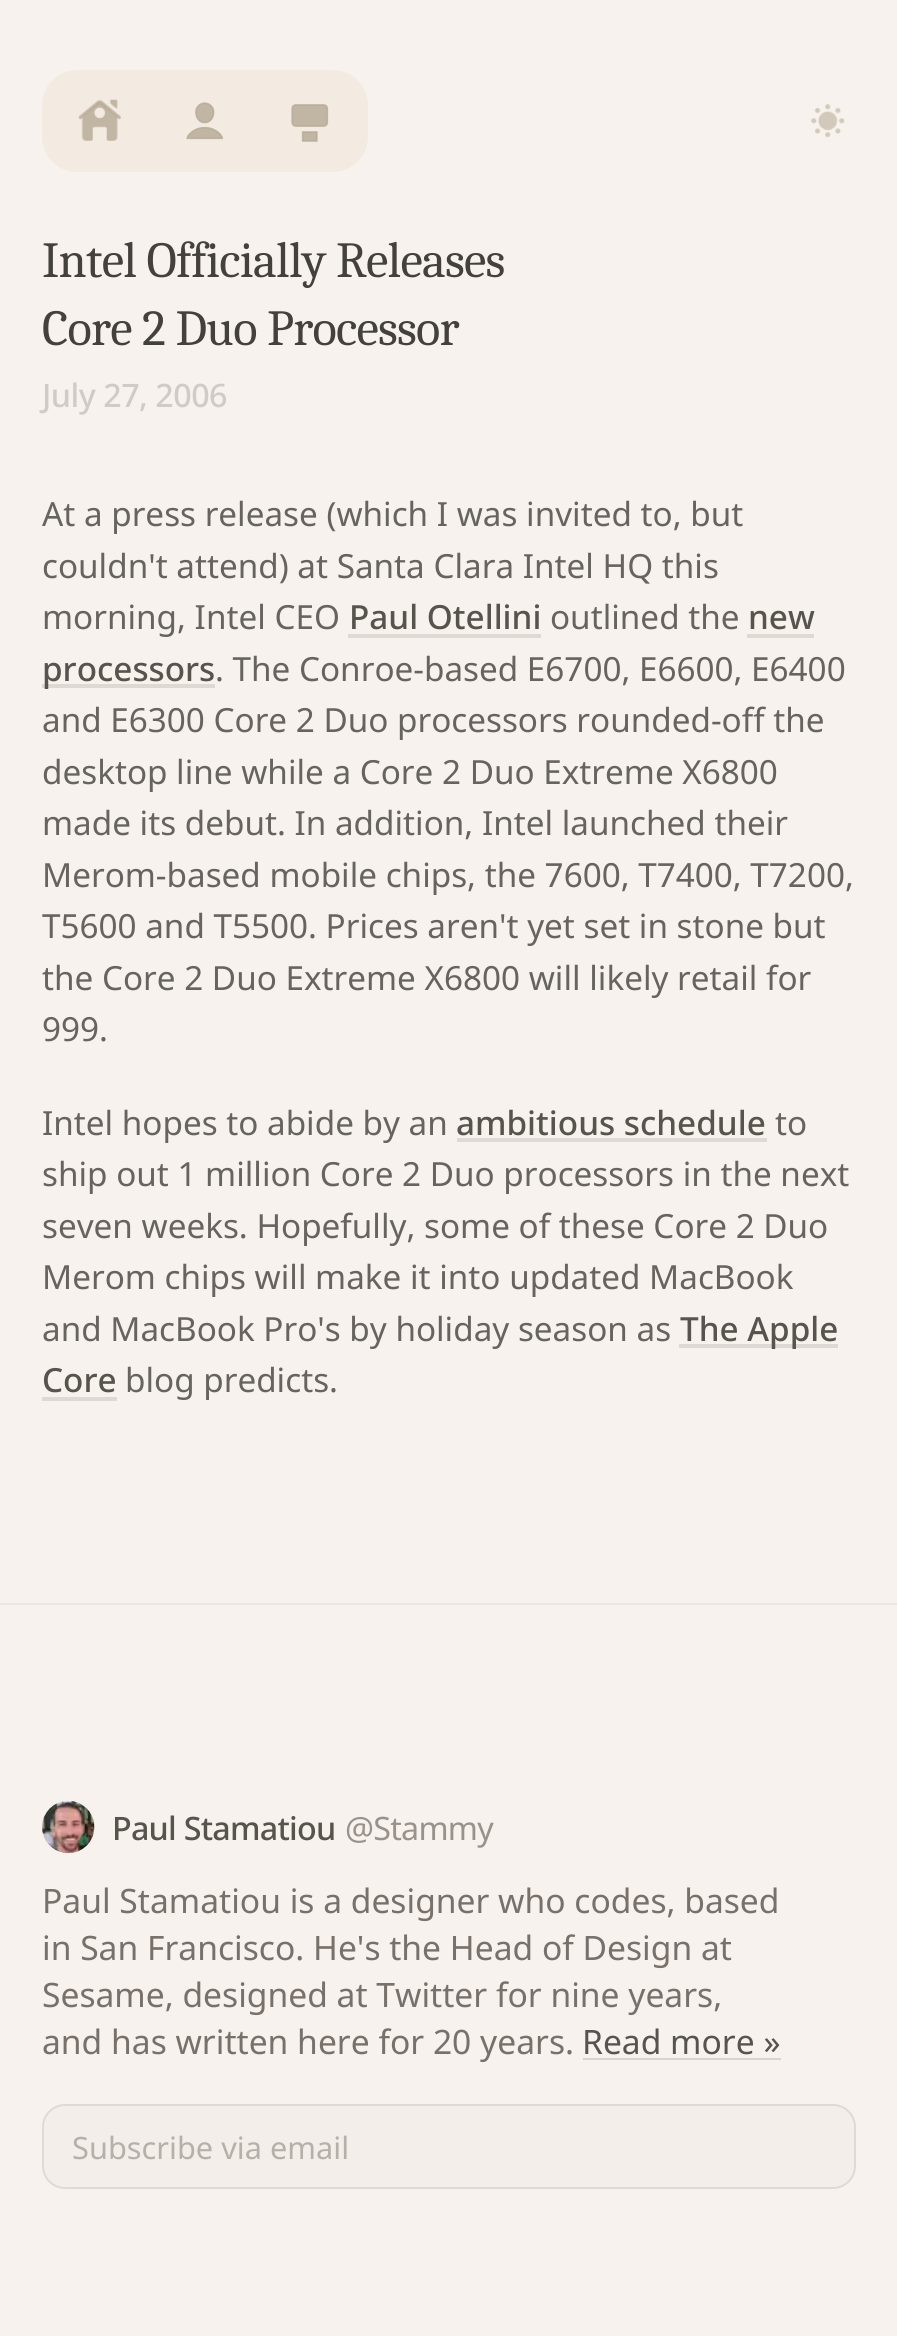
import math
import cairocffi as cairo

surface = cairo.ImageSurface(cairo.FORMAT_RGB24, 897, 2336)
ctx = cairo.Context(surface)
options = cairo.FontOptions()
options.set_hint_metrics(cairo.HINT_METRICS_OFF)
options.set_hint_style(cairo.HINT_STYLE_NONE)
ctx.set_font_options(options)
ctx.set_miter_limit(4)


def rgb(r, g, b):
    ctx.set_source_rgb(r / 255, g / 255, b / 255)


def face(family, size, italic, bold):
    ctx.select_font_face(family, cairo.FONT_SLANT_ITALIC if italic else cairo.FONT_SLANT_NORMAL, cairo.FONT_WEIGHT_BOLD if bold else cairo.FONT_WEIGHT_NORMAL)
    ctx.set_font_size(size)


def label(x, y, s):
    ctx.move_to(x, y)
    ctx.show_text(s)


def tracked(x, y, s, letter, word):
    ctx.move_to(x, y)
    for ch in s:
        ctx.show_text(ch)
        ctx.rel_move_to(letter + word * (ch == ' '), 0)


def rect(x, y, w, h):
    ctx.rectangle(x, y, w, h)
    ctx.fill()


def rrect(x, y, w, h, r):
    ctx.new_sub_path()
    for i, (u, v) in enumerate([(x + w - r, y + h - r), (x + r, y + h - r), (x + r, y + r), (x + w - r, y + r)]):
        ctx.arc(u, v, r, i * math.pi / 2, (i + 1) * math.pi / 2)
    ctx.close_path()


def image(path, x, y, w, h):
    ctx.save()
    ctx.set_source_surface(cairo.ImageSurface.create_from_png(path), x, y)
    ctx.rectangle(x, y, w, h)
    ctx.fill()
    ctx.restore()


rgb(247, 242, 237)
ctx.paint()
rgb(243, 235, 226)
rrect(42, 70, 326, 102, 35)
ctx.fill()
image('image0.png', 78, 99, 43, 42)
image('image1.png', 186, 102, 37, 38)
image('image2.png', 291, 104, 38, 38)
image('image3.png', 811, 104, 34, 34)
face('Caladea', 50.5, 0, 0)
rgb(68, 64, 59)
tracked(42, 277, 'Intel Officially Releases', -0.75, 0)
tracked(42, 345, 'Core 2 Duo Processor', -0.75, 0)
face('Noto Sans Medium', 32.25, 0, 0)
rgb(208, 203, 198)
tracked(42, 407, 'July 27, 2006', -0.5, 0)
face('Noto Sans', 33.25, 0, 0)
rgb(103, 99, 94)
label(42, 526, 'At a press release (which I was invited to, but')
label(42, 578, 'couldn\'t attend) at Santa Clara Intel HQ this')
label(42, 629, 'morning, Intel CEO')
face('Noto Sans Medium', 33.25, 0, 0)
rgb(87, 83, 77)
label(349, 629, 'Paul Otellini')
rgb(223, 217, 212)
rect(348, 634, 193, 4)
face('Noto Sans', 33.25, 0, 0)
rgb(103, 99, 94)
label(550, 629, 'outlined the')
face('Noto Sans Medium', 33.25, 0, 0)
rgb(87, 83, 77)
label(748, 629, 'new')
rgb(223, 217, 212)
rect(747, 634, 67, 4)
rect(42, 684, 173, 4)
rgb(87, 83, 77)
label(42, 681, 'processors')
face('Noto Sans', 33.25, 0, 0)
rgb(103, 99, 94)
label(215, 681, '. The Conroe-based E6700, E6600, E6400')
label(42, 732, 'and E6300 Core 2 Duo processors rounded-off the')
label(42, 784, 'desktop line while a Core 2 Duo Extreme X6800')
label(42, 835, 'made its debut. In addition, Intel launched their')
label(42, 887, 'Merom-based mobile chips, the 7600, T7400, T7200,')
label(42, 938, 'T5600 and T5500. Prices aren\'t yet set in stone but')
label(42, 990, 'the Core 2 Duo Extreme X6800 will likely retail for')
label(42, 1041, '999.')
label(42, 1135, 'Intel hopes to abide by an')
face('Noto Sans Medium', 33.25, 0, 0)
rgb(87, 83, 77)
label(456, 1135, 'ambitious schedule')
rgb(223, 217, 212)
rect(457, 1138, 310, 4)
face('Noto Sans', 33.25, 0, 0)
rgb(103, 99, 94)
label(775, 1135, 'to')
label(42, 1186, 'ship out 1 million Core 2 Duo processors in the next')
label(42, 1238, 'seven weeks. Hopefully, some of these Core 2 Duo')
label(42, 1289, 'Merom chips will make it into updated MacBook')
label(42, 1341, 'and MacBook Pro\'s by holiday season as')
rgb(223, 217, 212)
rect(679, 1344, 159, 4)
face('Noto Sans Medium', 33.25, 0, 0)
rgb(87, 83, 77)
label(680, 1341, 'The Apple')
label(42, 1392, 'Core')
rgb(223, 217, 212)
rect(42, 1397, 75, 4)
face('Noto Sans', 33.25, 0, 0)
rgb(103, 99, 94)
label(125, 1392, 'blog predicts.')
rgb(234, 230, 226)
rect(0, 1603, 897, 2)
image('image4.png', 42, 1801, 53, 53)
face('Noto Sans Medium', 32.25, 0, 0)
rgb(87, 83, 77)
tracked(112, 1840, 'Paul Stamatiou', -0.75, 0)
face('Noto Sans', 32.25, 0, 0)
rgb(153, 145, 140)
tracked(345, 1840, '@Stammy', -0.75, 0)
face('Noto Sans', 33.6, 0, 0)
rgb(120, 112, 106)
label(42, 1913, 'Paul Stamatiou is a designer who codes, based')
label(42, 1960, 'in San Francisco. He\'s the Head of Design at')
label(42, 2007, 'Sesame, designed at Twitter for nine years,')
label(42, 2054, 'and has written here for 20 years.')
rgb(87, 83, 77)
label(582, 2054, 'Read more »')
rgb(214, 211, 209)
rect(583, 2058, 198, 2)
rgb(243, 238, 233)
rrect(43, 2105, 812, 83, 22)
ctx.fill_preserve()
rgb(221, 218, 215)
ctx.stroke()
face('Noto Sans', 30.75, 0, 0)
rgb(182, 176, 170)
label(72, 2159, 'Subscribe via email')
surface.write_to_png('render.png')
